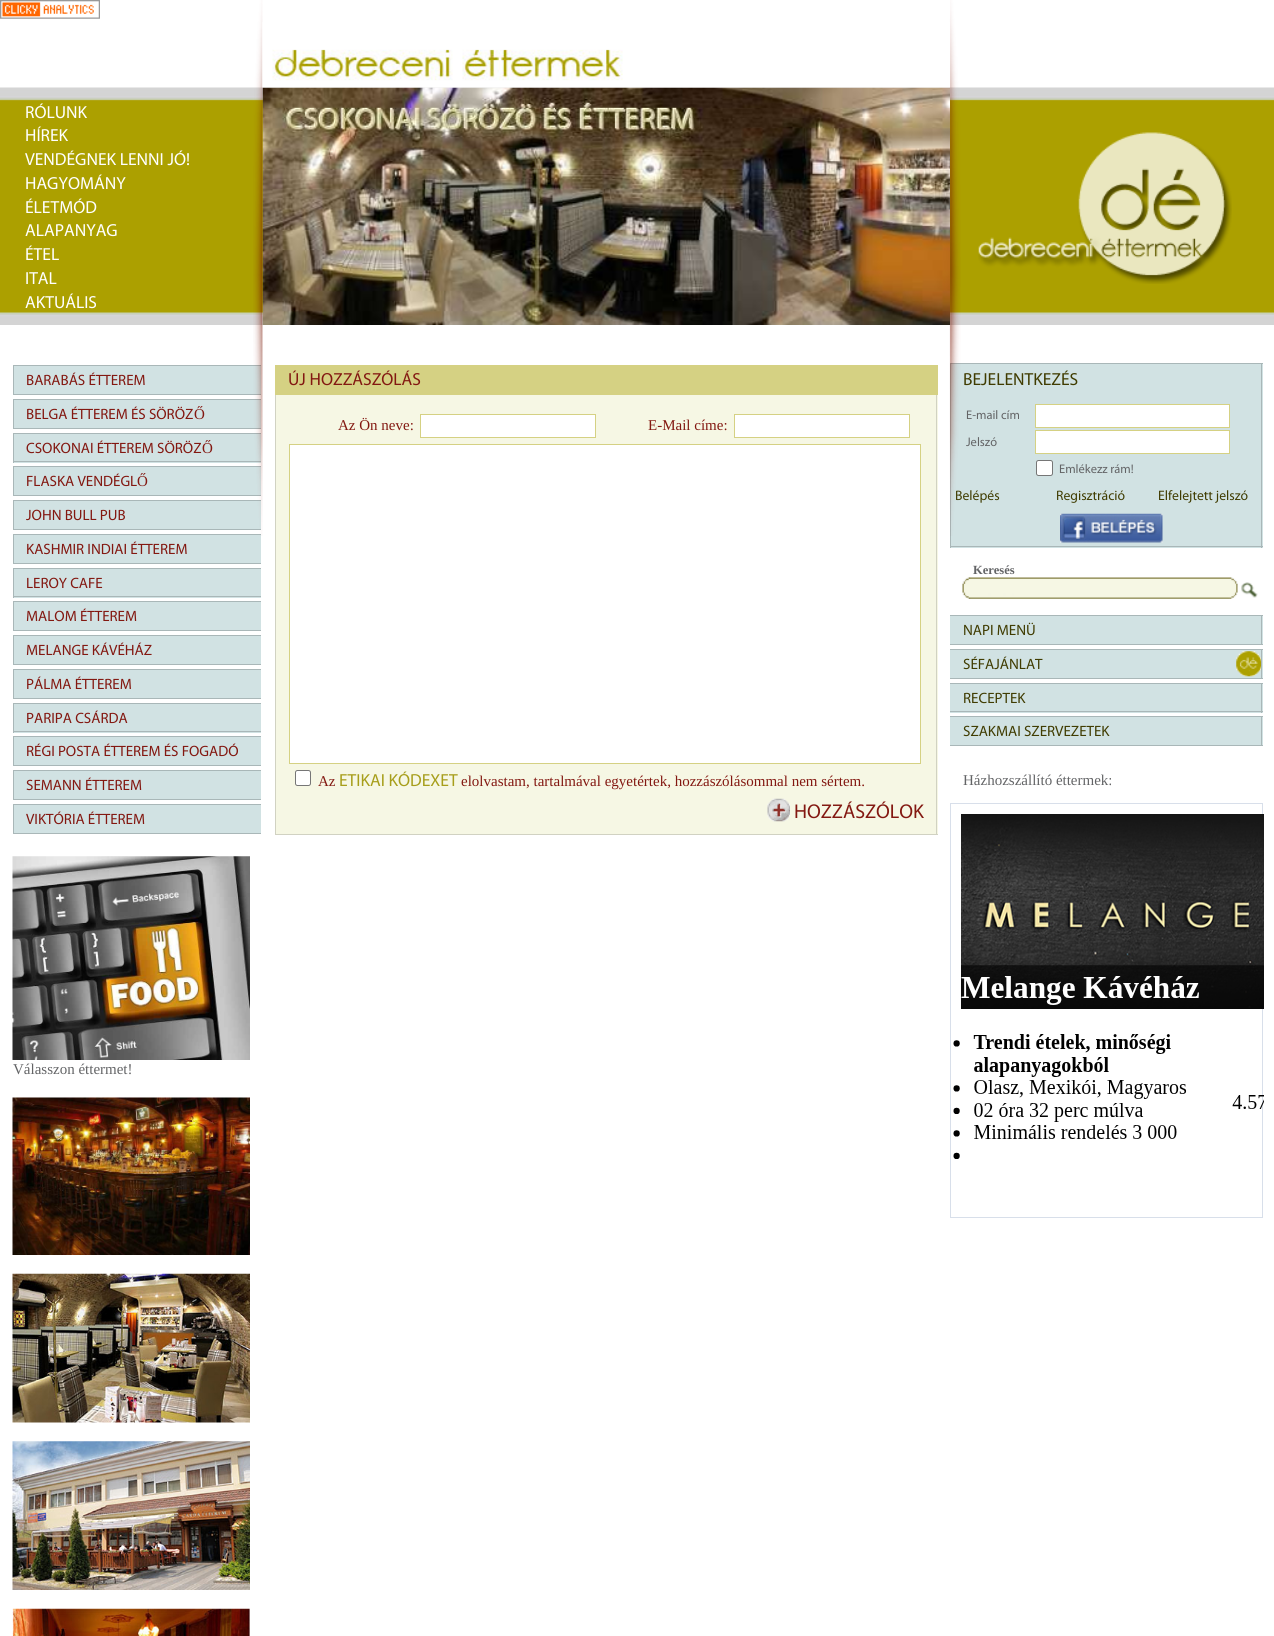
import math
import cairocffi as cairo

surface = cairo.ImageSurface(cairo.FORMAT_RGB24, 1274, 1636)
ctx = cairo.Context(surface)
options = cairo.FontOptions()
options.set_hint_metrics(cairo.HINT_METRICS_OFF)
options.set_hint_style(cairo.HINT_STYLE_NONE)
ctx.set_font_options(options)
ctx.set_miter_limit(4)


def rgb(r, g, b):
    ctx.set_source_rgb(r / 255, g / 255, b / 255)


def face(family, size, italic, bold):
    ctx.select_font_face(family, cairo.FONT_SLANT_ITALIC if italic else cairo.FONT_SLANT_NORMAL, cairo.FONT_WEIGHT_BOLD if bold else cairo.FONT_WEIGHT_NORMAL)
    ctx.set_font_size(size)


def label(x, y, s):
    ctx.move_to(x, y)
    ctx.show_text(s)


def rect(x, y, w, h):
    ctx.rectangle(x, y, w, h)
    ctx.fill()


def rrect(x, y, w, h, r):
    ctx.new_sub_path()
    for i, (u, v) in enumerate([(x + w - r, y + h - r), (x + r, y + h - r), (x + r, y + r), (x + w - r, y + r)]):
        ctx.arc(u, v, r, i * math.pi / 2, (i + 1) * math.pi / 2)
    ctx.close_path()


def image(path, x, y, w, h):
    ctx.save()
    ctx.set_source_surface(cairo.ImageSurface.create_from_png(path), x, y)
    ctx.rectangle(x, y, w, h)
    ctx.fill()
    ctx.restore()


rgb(255, 255, 255)
ctx.paint()
image('image0.png', 0, 87, 1274, 238)
image('image1.png', 0, 0, 100, 19)
face('Myriad', 17.5, 0, 0)
rgb(255, 255, 255)
label(25, 118, 'RÓLUNK')
label(25, 141, 'HÍREK')
label(25, 165, 'VENDÉGNEK LENNI JÓ!')
label(25, 189, 'HAGYOMÁNY')
label(25, 213, 'ÉLETMÓD')
label(25, 236, 'ALAPANYAG')
label(25, 260, 'ÉTEL')
label(25, 284, 'ITAL')
label(25, 308, 'AKTUÁLIS')
rgb(209, 226, 227)
rect(14, 366, 247, 28)
rgb(169, 183, 184)
rect(13, 365, 248, 1)
rect(13, 394, 248, 1)
rect(13, 365, 1, 30)
face('Myriad', 15, 0, 0)
rgb(131, 24, 17)
label(26, 385, 'BARABÁS ÉTTEREM')
rgb(209, 226, 227)
rect(14, 400, 247, 28)
rgb(169, 183, 184)
rect(13, 399, 248, 1)
rect(13, 428, 248, 1)
rect(13, 399, 1, 30)
rgb(131, 24, 17)
label(26, 419, 'BELGA ÉTTEREM ÉS SÖRÖZ')
face('Liberation Serif', 15, 0, 0)
label(194, 419, 'Ő')
rgb(209, 226, 227)
rect(14, 434, 247, 29)
rgb(169, 183, 184)
rect(13, 433, 248, 1)
rect(13, 461, 248, 1)
rect(13, 433, 1, 30)
face('Myriad', 15, 0, 0)
rgb(131, 24, 17)
label(26, 453, 'CSOKONAI ÉTTEREM SÖRÖZ')
face('Liberation Serif', 15, 0, 0)
label(202, 453, 'Ő')
rgb(209, 226, 227)
rect(14, 467, 247, 28)
rgb(169, 183, 184)
rect(13, 466, 248, 1)
rect(13, 495, 248, 1)
rect(13, 466, 1, 30)
face('Myriad', 15, 0, 0)
rgb(131, 24, 17)
label(26, 486, 'FLASKA VENDÉGL')
face('Liberation Serif', 15, 0, 0)
label(137, 486, 'Ő')
rgb(209, 226, 227)
rect(14, 501, 247, 28)
rgb(169, 183, 184)
rect(13, 500, 248, 1)
rect(13, 529, 248, 1)
rect(13, 500, 1, 30)
face('Myriad', 15, 0, 0)
rgb(131, 24, 17)
label(26, 520, 'JOHN BULL PUB')
rgb(209, 226, 227)
rect(14, 535, 247, 28)
rgb(169, 183, 184)
rect(13, 534, 248, 1)
rect(13, 563, 248, 1)
rect(13, 534, 1, 30)
rgb(131, 24, 17)
label(26, 554, 'KASHMIR INDIAI ÉTTEREM')
rgb(209, 226, 227)
rect(14, 569, 247, 29)
rgb(169, 183, 184)
rect(13, 568, 248, 1)
rect(13, 596, 248, 1)
rect(13, 568, 1, 30)
rgb(131, 24, 17)
label(26, 588, 'LEROY CAFE')
rgb(209, 226, 227)
rect(14, 602, 247, 28)
rgb(169, 183, 184)
rect(13, 601, 248, 1)
rect(13, 630, 248, 1)
rect(13, 601, 1, 30)
rgb(131, 24, 17)
label(26, 621, 'MALOM ÉTTEREM')
rgb(209, 226, 227)
rect(14, 636, 247, 28)
rgb(169, 183, 184)
rect(13, 635, 248, 1)
rect(13, 664, 248, 1)
rect(13, 635, 1, 30)
rgb(131, 24, 17)
label(26, 655, 'MELANGE KÁVÉHÁZ')
rgb(209, 226, 227)
rect(14, 670, 247, 28)
rgb(169, 183, 184)
rect(13, 669, 248, 1)
rect(13, 698, 248, 1)
rect(13, 669, 1, 30)
rgb(131, 24, 17)
label(26, 689, 'PÁLMA ÉTTEREM')
rgb(209, 226, 227)
rect(14, 704, 247, 29)
rgb(169, 183, 184)
rect(13, 703, 248, 1)
rect(13, 731, 248, 1)
rect(13, 703, 1, 30)
rgb(131, 24, 17)
label(26, 723, 'PARIPA CSÁRDA')
rgb(209, 226, 227)
rect(14, 737, 247, 28)
rgb(169, 183, 184)
rect(13, 736, 248, 1)
rect(13, 765, 248, 1)
rect(13, 736, 1, 30)
rgb(131, 24, 17)
label(26, 756, 'RÉGI POSTA ÉTTEREM ÉS FOGADÓ')
rgb(209, 226, 227)
rect(14, 771, 247, 28)
rgb(169, 183, 184)
rect(13, 770, 248, 1)
rect(13, 799, 248, 1)
rect(13, 770, 1, 30)
rgb(131, 24, 17)
label(26, 790, 'SEMANN ÉTTEREM')
rgb(209, 226, 227)
rect(14, 805, 247, 28)
rgb(169, 183, 184)
rect(13, 804, 248, 1)
rect(13, 833, 248, 1)
rect(13, 804, 1, 30)
rgb(131, 24, 17)
label(26, 824, 'VIKTÓRIA ÉTTEREM')
image('image2.png', 12, 856, 238, 204)
face('Liberation Serif', 15, 0, 0)
rgb(99, 100, 102)
label(13, 1074, 'Válasszon éttermet!')
image('image3.png', 12, 1097, 238, 158)
image('image4.png', 12, 1273, 238, 150)
image('image5.png', 12, 1441, 238, 149)
image('image6.png', 12, 1608, 238, 28)
rgb(209, 226, 227)
rect(951, 364, 312, 184)
rgb(169, 183, 184)
rect(950, 363, 313, 1)
rect(950, 363, 1, 146)
face('Myriad', 13.75, 0, 0)
rgb(64, 60, 1)
label(955, 500, 'Belépés')
rgb(169, 183, 184)
rect(1261, 363, 1, 185)
rect(950, 546, 313, 1)
rect(950, 509, 1, 39)
image('image7.png', 253, 0, 708, 536)
image('image8.png', 262, 22, 688, 66)
image('image9.png', 262, 87, 688, 238)
rgb(213, 209, 131)
rect(275, 365, 663, 30)
face('Myriad', 17.5, 0, 0)
rgb(131, 24, 17)
label(288, 385, 'ÚJ HOZZÁSZÓLÁS')
rgb(246, 247, 228)
rect(276, 395, 662, 439)
rgb(209, 210, 194)
rect(936, 395, 1, 440)
rect(275, 834, 663, 1)
rect(275, 395, 1, 440)
face('Liberation Serif', 15, 0, 0)
rgb(131, 24, 17)
label(338, 430, 'Az Ön neve:')
rgb(255, 255, 255)
ctx.rectangle(420.5, 414.5, 175, 23)
ctx.fill_preserve()
rgb(213, 209, 131)
ctx.set_line_width(1)
ctx.stroke()
rgb(131, 24, 17)
label(648, 430, 'E-Mail címe:')
rgb(255, 255, 255)
ctx.rectangle(734.5, 414.5, 175, 23)
ctx.fill_preserve()
rgb(213, 209, 131)
ctx.stroke()
rgb(255, 255, 255)
ctx.rectangle(289.5, 444.5, 631, 319)
ctx.fill_preserve()
rgb(213, 209, 131)
ctx.stroke()
rgb(255, 255, 255)
rrect(295.5, 770.5, 15, 15, 2)
ctx.fill_preserve()
rgb(118, 118, 118)
ctx.stroke()
rgb(131, 24, 17)
label(318, 786, 'Az')
face('Myriad', 17.5, 0, 0)
rgb(167, 158, 27)
label(339, 786, 'ETIKAI KÓDEXET')
face('Liberation Serif', 15, 0, 0)
rgb(131, 24, 17)
label(461, 786, 'elolvastam, tartalmával egyetértek, hozzászólásommal nem sértem.')
image('image10.png', 767, 798, 23, 24)
face('Myriad', 20, 0, 0)
label(794, 818, 'HOZZÁSZÓLOK')
image('image11.png', 978, 132, 254, 152)
face('Myriad', 17.5, 0, 0)
rgb(64, 60, 1)
label(963, 385, 'BEJELENTKEZÉS')
face('Myriad', 12.5, 0, 0)
rgb(99, 100, 102)
label(966, 419, 'E-mail cím')
rgb(255, 255, 255)
ctx.rectangle(1035.5, 404.5, 194, 23)
ctx.fill_preserve()
rgb(213, 209, 131)
ctx.stroke()
rgb(99, 100, 102)
label(966, 446, 'Jelszó')
rgb(255, 255, 255)
ctx.rectangle(1035.5, 430.5, 194, 23)
ctx.fill_preserve()
rgb(213, 209, 131)
ctx.stroke()
rgb(255, 255, 255)
rrect(1036.5, 460.5, 16, 15, 2)
ctx.fill_preserve()
rgb(118, 118, 118)
ctx.stroke()
rgb(99, 100, 102)
label(1059, 473, 'Emlékezz rám!')
face('Myriad', 13.75, 0, 0)
rgb(64, 60, 1)
label(1056, 500, 'Regisztráció')
label(1158, 500, 'Elfelejtett jelszó')
image('image12.png', 1060, 513, 103, 30)
face('Liberation Serif', 12.5, 0, 1)
rgb(99, 100, 102)
label(973, 574, 'Keresés')
image('image13.png', 962, 577, 276, 22)
image('image14.png', 1241, 582, 17, 16)
rgb(209, 226, 227)
rect(950, 616, 313, 28)
rgb(169, 183, 184)
rect(950, 615, 313, 1)
rect(1261, 615, 1, 30)
rect(950, 644, 313, 1)
face('Myriad', 15, 0, 0)
rgb(64, 60, 1)
label(963, 635, 'NAPI MENÜ')
rgb(209, 226, 227)
rect(950, 650, 313, 28)
image('image15.png', 1236, 651, 25, 26)
rgb(169, 183, 184)
rect(950, 649, 313, 1)
rect(1261, 649, 1, 30)
rect(950, 678, 313, 1)
rgb(64, 60, 1)
label(963, 669, 'SÉFAJÁNLAT')
rgb(209, 226, 227)
rect(950, 684, 313, 29)
rgb(169, 183, 184)
rect(950, 683, 313, 1)
rect(1261, 683, 1, 30)
rect(950, 711, 313, 1)
rgb(64, 60, 1)
label(963, 703, 'RECEPTEK')
rgb(209, 226, 227)
rect(950, 717, 313, 28)
rgb(169, 183, 184)
rect(950, 716, 313, 1)
rect(1261, 716, 1, 30)
rect(950, 745, 313, 1)
rgb(64, 60, 1)
label(963, 736, 'SZAKMAI SZERVEZETEK')
face('Liberation Serif', 15, 0, 0)
rgb(99, 100, 102)
label(963, 785, 'Házhozszállító éttermek:')
ctx.rectangle(950.5, 803.5, 312, 414)
rgb(216, 223, 234)
ctx.stroke()
image('image16.png', 953, 814, 311, 345)
surface.write_to_png('render.png')
